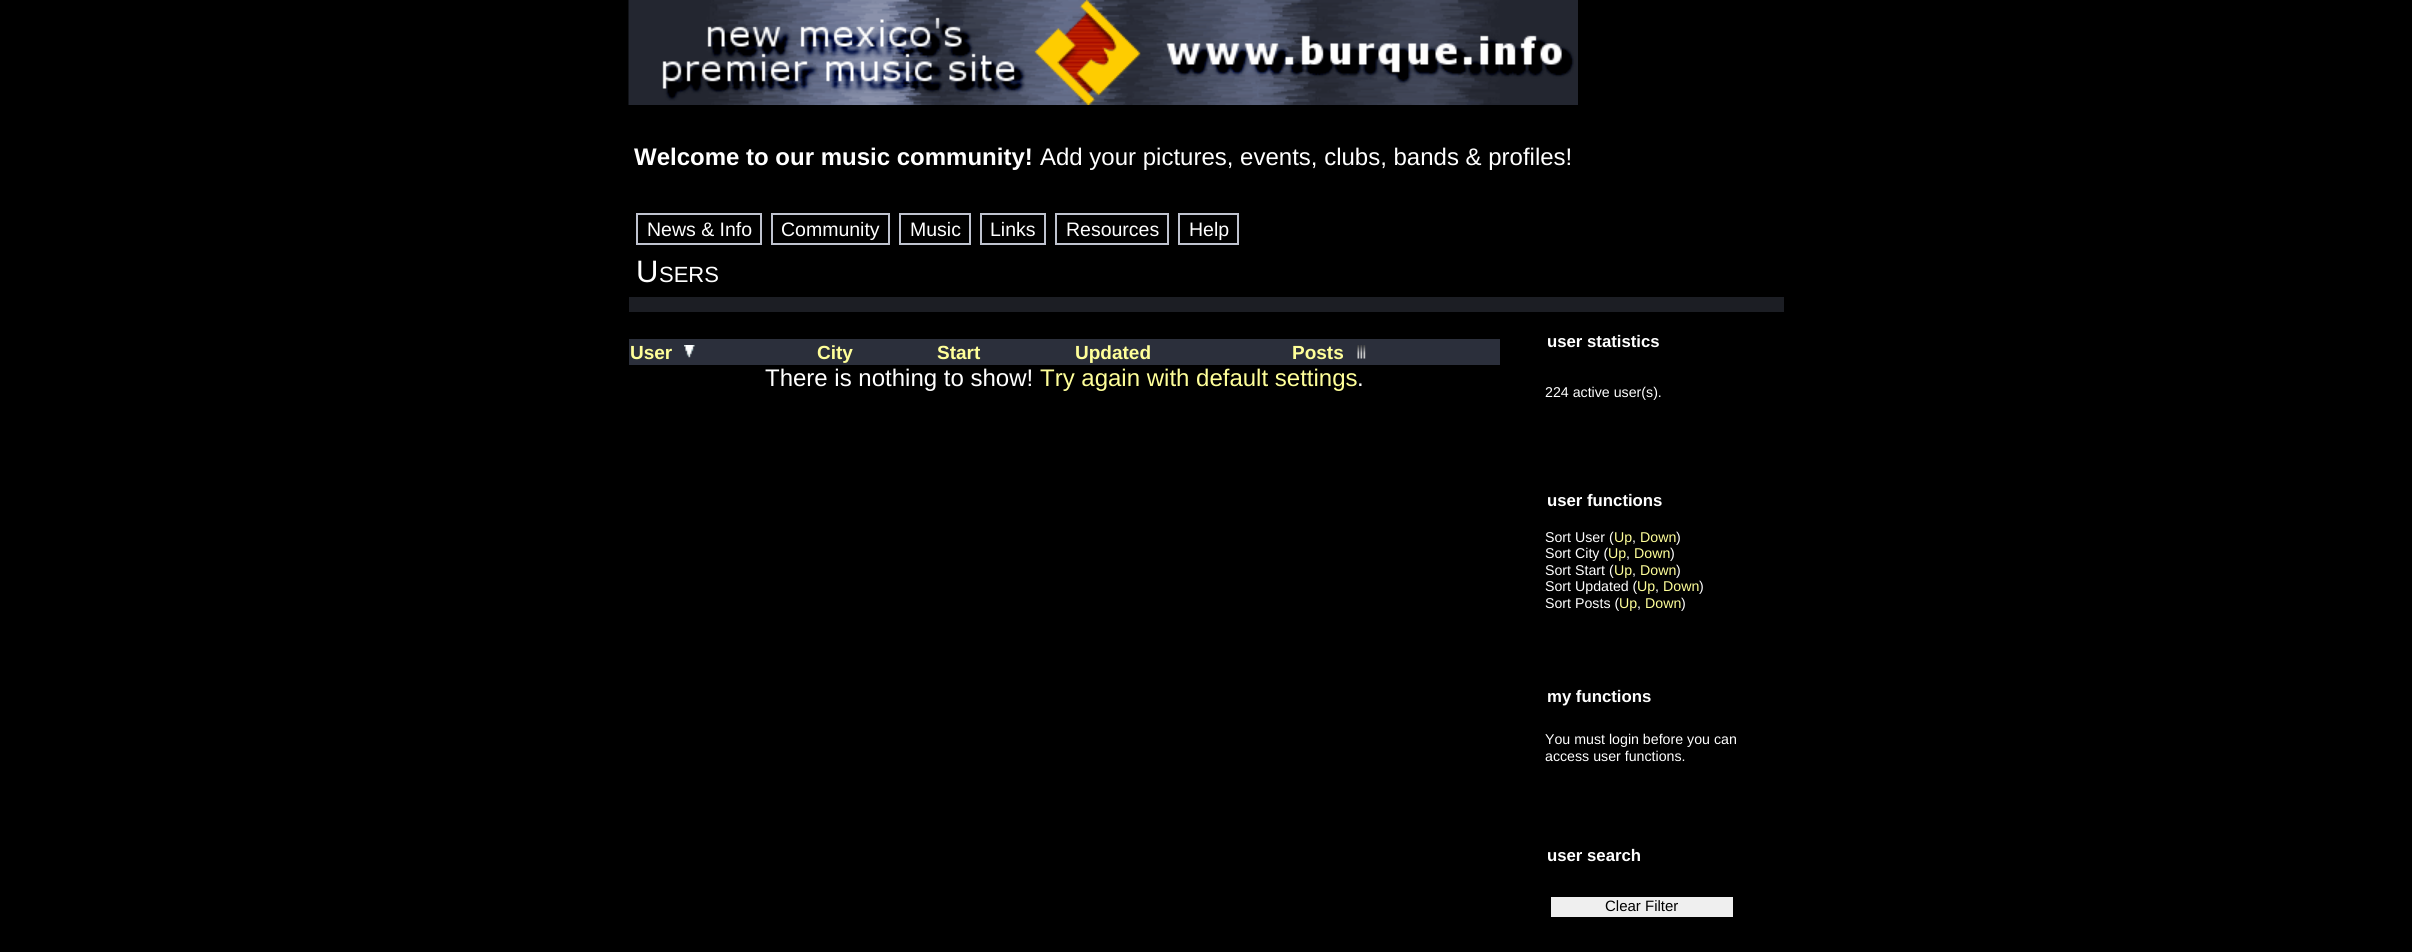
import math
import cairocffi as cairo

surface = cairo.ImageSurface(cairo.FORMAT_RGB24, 2412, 952)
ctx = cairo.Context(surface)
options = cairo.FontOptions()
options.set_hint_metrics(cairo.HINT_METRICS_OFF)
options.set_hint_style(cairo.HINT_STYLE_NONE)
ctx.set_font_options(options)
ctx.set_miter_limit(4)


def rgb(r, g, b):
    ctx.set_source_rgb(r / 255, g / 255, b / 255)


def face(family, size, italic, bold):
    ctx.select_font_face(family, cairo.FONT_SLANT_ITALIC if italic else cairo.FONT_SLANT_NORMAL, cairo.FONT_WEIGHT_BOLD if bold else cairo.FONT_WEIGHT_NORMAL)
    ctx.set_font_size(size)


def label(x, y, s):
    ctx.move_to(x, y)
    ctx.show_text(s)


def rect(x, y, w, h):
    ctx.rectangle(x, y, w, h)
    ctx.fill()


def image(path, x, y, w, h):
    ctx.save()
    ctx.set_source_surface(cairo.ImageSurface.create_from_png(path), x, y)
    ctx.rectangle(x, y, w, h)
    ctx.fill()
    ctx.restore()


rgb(0, 0, 0)
ctx.paint()
image('image0.png', 628, 0, 950, 105)
face('Liberation Sans', 24, 0, 1)
rgb(255, 255, 255)
label(634, 165, 'Welcome to our music community!')
face('Liberation Sans', 24, 0, 0)
label(1040, 165, 'Add your pictures, events, clubs, bands & profiles!')
ctx.rectangle(637, 214, 124, 30)
rgb(191, 195, 207)
ctx.stroke()
face('Liberation Sans', 19.5, 0, 0)
rgb(255, 255, 255)
label(647, 236, 'News & Info')
ctx.rectangle(772, 214, 117, 30)
rgb(191, 195, 207)
ctx.stroke()
rgb(255, 255, 255)
label(781, 236, 'Community')
ctx.rectangle(900, 214, 70, 30)
rgb(191, 195, 207)
ctx.stroke()
rgb(255, 255, 255)
label(910, 236, 'Music')
ctx.rectangle(981, 214, 64, 30)
rgb(191, 195, 207)
ctx.stroke()
rgb(255, 255, 255)
label(990, 236, 'Links')
ctx.rectangle(1056, 214, 112, 30)
rgb(191, 195, 207)
ctx.stroke()
rgb(255, 255, 255)
label(1066, 236, 'Resources')
ctx.rectangle(1179, 214, 59, 30)
rgb(191, 195, 207)
ctx.stroke()
rgb(255, 255, 255)
label(1189, 236, 'Help')
face('Liberation Sans', 31, 0, 0)
label(636, 282, 'U')
face('Liberation Sans', 22, 0, 0)
label(659, 282, 'SERS')
rgb(28, 30, 36)
rect(629, 297, 1155, 15)
rgb(43, 47, 59)
rect(629, 339, 871, 26)
face('Liberation Sans', 19, 0, 1)
rgb(255, 255, 153)
label(630, 359, 'User')
image('image1.png', 684, 345, 11, 13)
label(817, 359, 'City')
label(937, 359, 'Start')
label(1075, 359, 'Updated')
label(1292, 359, 'Posts')
image('image2.png', 1357, 345, 9, 14)
face('Liberation Sans', 24, 0, 0)
rgb(255, 255, 255)
label(765, 386, 'There is nothing to show!')
rgb(255, 255, 153)
label(1040, 386, 'Try again with default settings')
rgb(255, 255, 255)
label(1357, 386, '.')
face('Liberation Sans', 16.75, 0, 1)
label(1547, 347, 'user statistics')
face('Liberation Sans', 14.2, 0, 0)
label(1545, 397, '224 active user(s).')
face('Liberation Sans', 16.75, 0, 1)
label(1547, 506, 'user functions')
face('Liberation Sans', 14.2, 0, 0)
label(1545, 542, 'Sort User (')
rgb(255, 255, 153)
label(1614, 542, 'Up')
rgb(255, 255, 255)
label(1632, 542, ',')
rgb(255, 255, 153)
label(1640, 542, 'Down')
rgb(255, 255, 255)
label(1676, 542, ')')
label(1545, 558, 'Sort City (')
rgb(255, 255, 153)
label(1608, 558, 'Up')
rgb(255, 255, 255)
label(1626, 558, ',')
rgb(255, 255, 153)
label(1634, 558, 'Down')
rgb(255, 255, 255)
label(1670, 558, ')')
label(1545, 575, 'Sort Start (')
rgb(255, 255, 153)
label(1614, 575, 'Up')
rgb(255, 255, 255)
label(1632, 575, ',')
rgb(255, 255, 153)
label(1640, 575, 'Down')
rgb(255, 255, 255)
label(1676, 575, ')')
label(1545, 591, 'Sort Updated (')
rgb(255, 255, 153)
label(1637, 591, 'Up')
rgb(255, 255, 255)
label(1655, 591, ',')
rgb(255, 255, 153)
label(1663, 591, 'Down')
rgb(255, 255, 255)
label(1699, 591, ')')
label(1545, 608, 'Sort Posts (')
rgb(255, 255, 153)
label(1619, 608, 'Up')
rgb(255, 255, 255)
label(1637, 608, ',')
rgb(255, 255, 153)
label(1645, 608, 'Down')
rgb(255, 255, 255)
label(1681, 608, ')')
face('Liberation Sans', 16.75, 0, 1)
label(1547, 702, 'my functions')
face('Liberation Sans', 14.2, 0, 0)
label(1545, 744, 'You must login before you can')
label(1545, 761, 'access user functions.')
face('Liberation Sans', 16.75, 0, 1)
label(1547, 861, 'user search')
rgb(239, 239, 239)
rect(1551, 897, 182, 20)
face('Liberation Sans', 15, 0, 0)
rgb(0, 0, 0)
label(1605, 911, 'Clear Filter')
surface.write_to_png('render.png')
